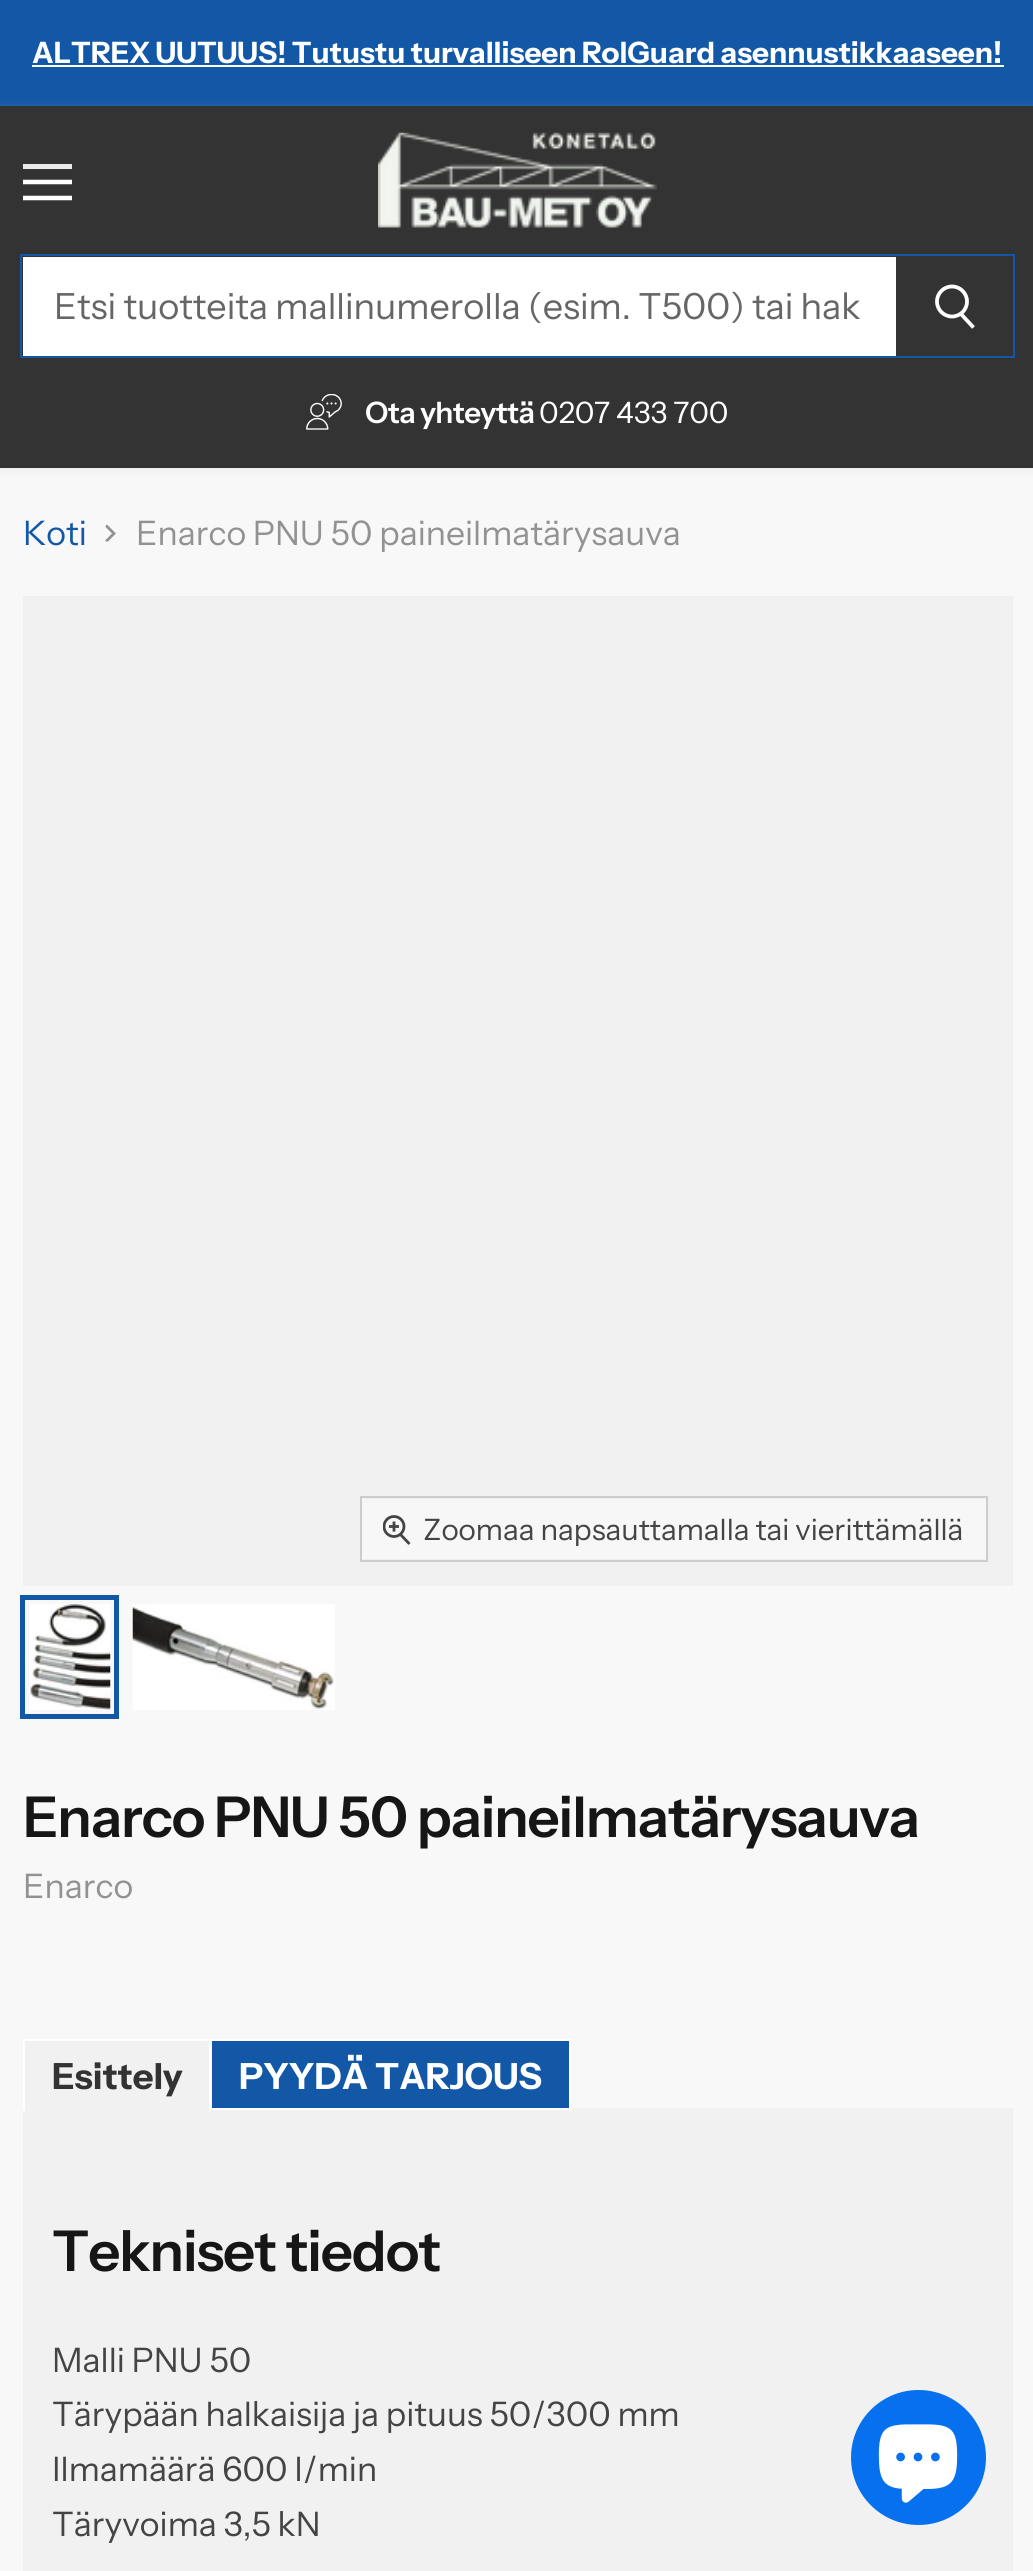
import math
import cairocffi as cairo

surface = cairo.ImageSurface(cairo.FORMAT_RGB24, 1033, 2571)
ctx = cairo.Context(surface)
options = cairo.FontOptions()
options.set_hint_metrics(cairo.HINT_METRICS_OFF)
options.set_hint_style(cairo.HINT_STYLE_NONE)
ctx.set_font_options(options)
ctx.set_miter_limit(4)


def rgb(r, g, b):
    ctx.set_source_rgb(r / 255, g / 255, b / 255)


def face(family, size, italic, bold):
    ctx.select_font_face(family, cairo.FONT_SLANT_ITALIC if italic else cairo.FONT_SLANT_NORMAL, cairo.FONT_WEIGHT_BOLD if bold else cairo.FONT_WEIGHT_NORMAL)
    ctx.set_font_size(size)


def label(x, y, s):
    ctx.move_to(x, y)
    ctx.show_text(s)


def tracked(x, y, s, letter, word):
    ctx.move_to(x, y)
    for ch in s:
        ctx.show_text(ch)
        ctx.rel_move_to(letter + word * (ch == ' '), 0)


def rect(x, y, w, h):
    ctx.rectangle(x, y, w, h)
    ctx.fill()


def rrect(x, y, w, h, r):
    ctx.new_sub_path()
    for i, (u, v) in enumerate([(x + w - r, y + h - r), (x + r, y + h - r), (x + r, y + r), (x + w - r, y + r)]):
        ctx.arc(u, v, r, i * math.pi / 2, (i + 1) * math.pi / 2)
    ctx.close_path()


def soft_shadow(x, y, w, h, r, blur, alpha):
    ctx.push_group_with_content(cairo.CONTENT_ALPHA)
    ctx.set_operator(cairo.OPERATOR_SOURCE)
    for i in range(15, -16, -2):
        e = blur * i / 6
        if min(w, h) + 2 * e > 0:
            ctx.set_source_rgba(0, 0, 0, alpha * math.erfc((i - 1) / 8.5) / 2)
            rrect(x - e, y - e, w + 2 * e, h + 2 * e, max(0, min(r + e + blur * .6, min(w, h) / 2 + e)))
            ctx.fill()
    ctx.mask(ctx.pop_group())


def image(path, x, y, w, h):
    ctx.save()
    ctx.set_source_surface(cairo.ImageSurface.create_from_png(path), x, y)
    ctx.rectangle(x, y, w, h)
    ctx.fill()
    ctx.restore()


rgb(248, 248, 248)
ctx.paint()
rgb(19, 88, 167)
rect(0, 0, 1033, 106)
face('Instrument Sans', 29.5, 0, 1)
rgb(255, 255, 255)
tracked(32, 63, 'ALTREX UUTUUS! Tutustu turvalliseen RolGuard asennustikkaaseen!', 0, -0.25)
rect(32, 65, 972, 2)
rgb(189, 189, 189)
soft_shadow(0, 108, 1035, 362, 0, 4.5, 0.25)
rgb(51, 51, 51)
rect(0, 106, 1033, 362)
rgb(235, 235, 235)
rect(23, 164, 49, 5)
ctx.save()
ctx.rectangle(23, 162, 49, 41)
ctx.clip()
ctx.new_path()
ctx.move_to(70, 182)
ctx.line_to(25, 182)
ctx.move_to(70, 198)
ctx.line_to(25, 198)
rgb(255, 255, 255)
ctx.set_line_width(4.5)
ctx.set_line_cap(cairo.LINE_CAP_SQUARE)
ctx.set_line_join(cairo.LINE_JOIN_ROUND)
ctx.stroke()
ctx.restore()
image('image0.png', 378, 132, 279, 96)
rgb(19, 88, 167)
rect(20, 254, 995, 2)
rect(1013, 254, 2, 104)
rect(20, 356, 995, 2)
ctx.new_path()
ctx.move_to(973.5, 327.5)
ctx.line_to(961, 314)
rgb(255, 255, 255)
ctx.set_line_width(3.8)
ctx.stroke()
ctx.arc(952, 301.5, 15, 0, 2 * math.pi)
ctx.stroke()
rect(23, 257, 873, 99)
rgb(19, 88, 167)
rect(20, 254, 2, 104)
face('Instrument Sans', 36, 0, 0)
rgb(102, 102, 102)
label(54, 319, 'Etsi tuotteita mallinumerolla (esim. T500) tai hak')
image('image1.png', 306, 394, 36, 36)
face('Instrument Sans SemiBold', 29.5, 0, 0)
rgb(255, 255, 255)
tracked(365, 423, 'Ota yhteyttä', -0.6, 0)
face('Instrument Sans', 29.5, 0, 0)
label(539, 423, '0207 433 700')
face('Instrument Sans', 33.75, 0, 0)
rgb(19, 88, 167)
label(23, 545, 'Koti')
ctx.save()
ctx.new_path()
ctx.move_to(105.5, 541.5)
ctx.line_to(105.5, 523.5)
ctx.line_to(117, 523.5)
ctx.line_to(117, 541.5)
ctx.close_path()
ctx.clip()
ctx.new_path()
ctx.move_to(106, 541.5)
ctx.line_to(114, 533.5)
ctx.line_to(106, 525.5)
rgb(146, 146, 146)
ctx.set_line_width(2.8)
ctx.stroke()
ctx.restore()
rgb(146, 146, 146)
label(136, 545, 'Enarco PNU 50 paineilmatärysauva')
rgb(240, 240, 240)
rect(23, 596, 990, 990)
ctx.rectangle(361, 1497, 626, 64)
rgb(204, 204, 204)
ctx.set_line_width(2)
ctx.stroke()
rgb(247, 247, 247)
rect(362, 1499, 624, 60)
ctx.new_path()
ctx.move_to(400, 1534)
ctx.line_to(409.5, 1544)
rgb(68, 68, 68)
ctx.set_line_width(2.8)
ctx.stroke()
ctx.save()
ctx.rectangle(383, 1514, 29, 32)
ctx.clip()
ctx.arc(394, 1526.5, 10, 0, 2 * math.pi)
ctx.stroke()
ctx.restore()
ctx.new_path()
ctx.move_to(394, 1521.5)
ctx.line_to(394, 1531.5)
ctx.set_line_join(cairo.LINE_JOIN_ROUND)
ctx.stroke()
ctx.set_source_rgba(0.267, 0.267, 0.267, 0.93)
rect(389, 1525, 10, 3)
face('Instrument Sans', 29.5, 0, 0)
rgb(68, 68, 68)
label(423, 1540, 'Zoomaa napsauttamalla tai vierittämällä')
ctx.rectangle(22.5, 1597.5, 94, 119)
rgb(19, 88, 167)
ctx.set_line_width(5)
ctx.set_line_join(cairo.LINE_JOIN_MITER)
ctx.stroke()
rgb(255, 255, 255)
rect(29, 1604, 81, 106)
image('image2.png', 29, 1604, 82, 106)
rect(133, 1604, 202, 106)
image('image3.png', 132, 1604, 202, 106)
face('Instrument Sans SemiBold', 56.25, 0, 0)
rgb(22, 22, 22)
tracked(23, 1837, 'Enarco PNU 50 paineilmatärysauva', -1.1, 0)
face('Instrument Sans', 33.75, 0, 0)
rgb(146, 146, 146)
label(23, 1898, 'Enarco')
rgb(241, 241, 241)
rect(25, 2041, 184, 67)
rgb(255, 255, 255)
rect(23, 2039, 549, 2)
rgb(241, 241, 241)
rect(23, 2108, 990, 463)
rgb(255, 255, 255)
rect(209, 2039, 2, 72)
rect(23, 2039, 2, 72)
face('Instrument Sans', 36, 0, 1)
rgb(51, 51, 51)
label(52, 2089, 'Esittely')
rgb(19, 88, 167)
rect(212, 2041, 357, 67)
rgb(255, 255, 255)
rect(569, 2039, 2, 72)
rect(212, 2108, 360, 2)
label(239, 2089, 'PYYDÄ TARJOUS')
face('Instrument Sans SemiBold', 56.25, 0, 0)
rgb(22, 22, 22)
tracked(52, 2271, 'Tekniset tiedot', -1.1, 0)
face('Instrument Sans', 33.75, 0, 0)
rgb(68, 68, 68)
label(52, 2372, 'Malli PNU 50')
label(52, 2426, 'Tärypään halkaisija ja pituus 50/300 mm')
label(52, 2481, 'Ilmamäärä 600 I/min')
label(52, 2536, 'Täryvoima 3,5 kN')
rgb(7, 112, 239)
ctx.new_path()
ctx.arc(918.5, 2457.5, 67.5, 0, 2 * math.pi)
ctx.fill()
image('image4.png', 878, 2424, 80, 79)
surface.write_to_png('render.png')
